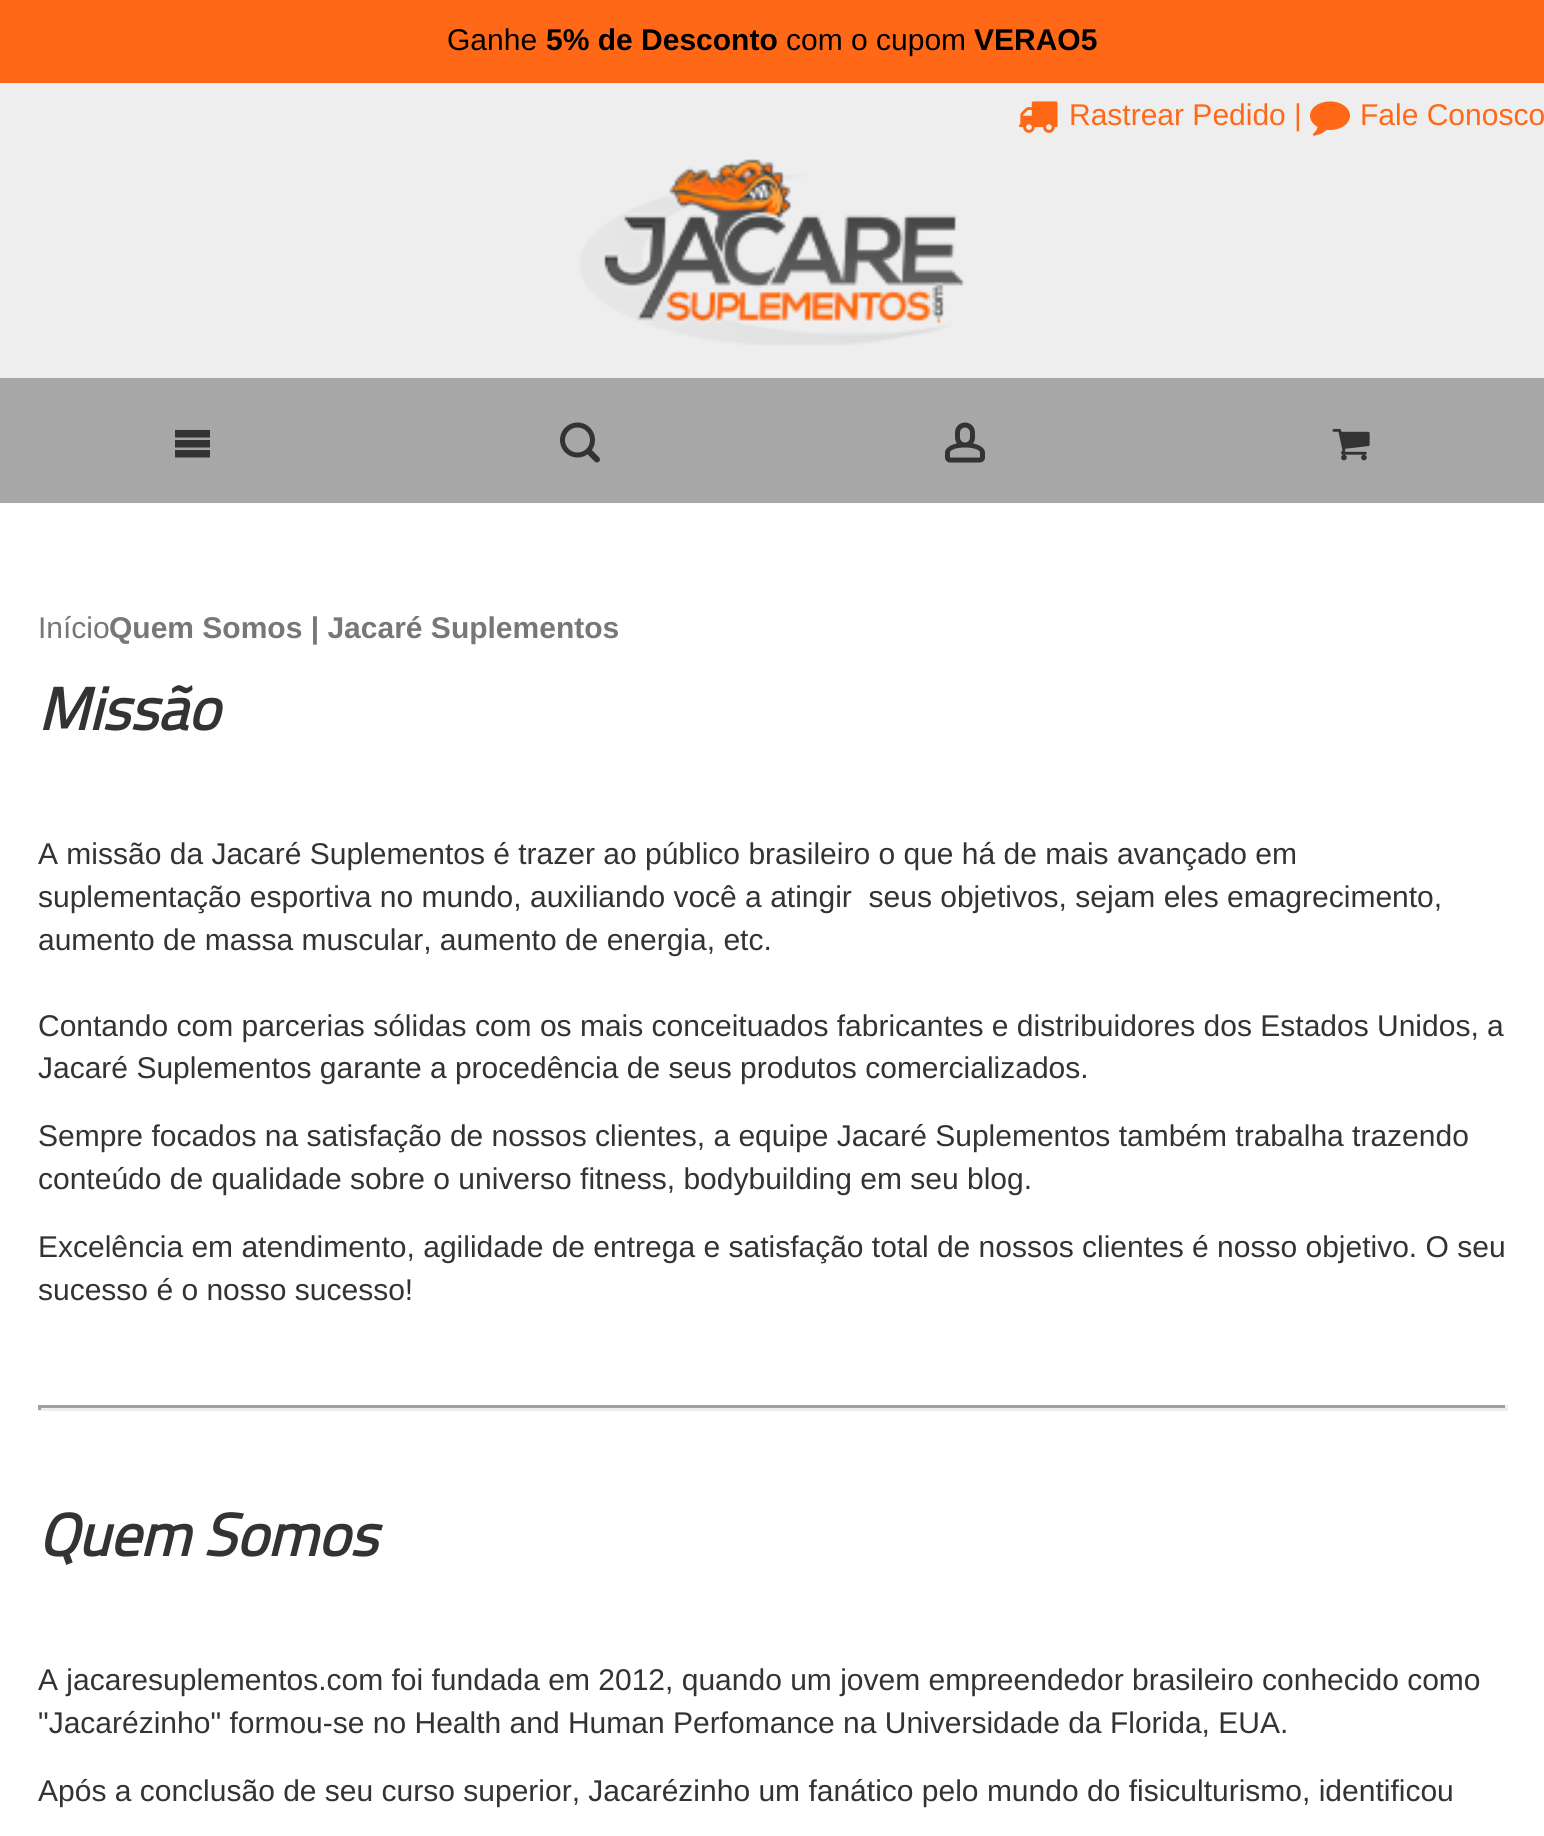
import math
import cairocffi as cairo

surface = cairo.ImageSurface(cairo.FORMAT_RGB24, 1544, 1836)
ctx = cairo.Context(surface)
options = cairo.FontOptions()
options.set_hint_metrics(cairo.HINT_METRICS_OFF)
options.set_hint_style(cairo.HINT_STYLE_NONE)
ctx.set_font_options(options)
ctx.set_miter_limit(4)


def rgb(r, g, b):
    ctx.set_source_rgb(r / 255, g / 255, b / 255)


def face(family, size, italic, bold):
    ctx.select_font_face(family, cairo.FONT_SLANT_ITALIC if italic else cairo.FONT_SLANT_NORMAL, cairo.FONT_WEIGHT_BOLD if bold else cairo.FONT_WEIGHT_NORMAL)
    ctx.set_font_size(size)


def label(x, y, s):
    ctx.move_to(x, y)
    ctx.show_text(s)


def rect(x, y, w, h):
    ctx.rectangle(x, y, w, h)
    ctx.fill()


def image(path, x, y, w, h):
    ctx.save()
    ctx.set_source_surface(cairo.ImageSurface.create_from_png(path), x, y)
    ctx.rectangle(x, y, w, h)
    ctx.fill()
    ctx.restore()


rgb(255, 104, 23)
ctx.paint()
face('Liberation Sans', 30, 0, 0)
rgb(0, 0, 0)
label(447, 50, 'Ganhe')
face('Liberation Sans', 30, 0, 1)
label(546, 50, '5% de Desconto')
face('Liberation Sans', 30, 0, 0)
label(786, 50, 'com o cupom')
face('Liberation Sans', 30, 0, 1)
label(974, 50, 'VERAO5')
rgb(255, 255, 255)
rect(0, 503, 1544, 1333)
rgb(238, 238, 238)
rect(0, 83, 1544, 295)
image('image0.png', 1018, 101, 40, 32)
face('Liberation Sans', 30, 0, 0)
rgb(255, 104, 23)
label(1069, 125, 'Rastrear Pedido |')
image('image1.png', 1310, 101, 40, 35)
label(1360, 125, 'Fale Conosco')
image('image2.png', 579, 159, 385, 187)
rgb(167, 167, 167)
rect(0, 378, 1544, 125)
rgb(51, 51, 51)
ctx.new_path()
ctx.move_to(175, 430)
ctx.line_to(210, 430)
ctx.line_to(210, 437.5)
ctx.line_to(175, 437.5)
ctx.close_path()
ctx.move_to(175, 440)
ctx.line_to(210, 440)
ctx.line_to(210, 447.5)
ctx.line_to(175, 447.5)
ctx.close_path()
ctx.move_to(175, 450)
ctx.line_to(210, 450)
ctx.line_to(210, 457.5)
ctx.line_to(175, 457.5)
ctx.close_path()
ctx.fill()
image('image3.png', 560, 422, 40, 41)
image('image4.png', 945, 422, 40, 41)
image('image5.png', 1332, 428, 38, 33)
rgb(119, 119, 119)
label(38, 638, 'Início')
face('Liberation Sans', 30, 0, 1)
label(109, 638, 'Quem Somos | Jacaré Suplementos')
face('Titillium Web', 60, 1, 1)
rgb(51, 51, 51)
label(38, 730, 'Missão')
face('Liberation Sans', 30, 0, 0)
label(38, 864, 'A missão da Jacaré Suplementos é trazer ao público brasileiro o que há de mais avançado em')
label(38, 907, 'suplementação esportiva no mundo, auxiliando você a atingir  seus objetivos, sejam eles emagrecimento,')
label(38, 950, 'aumento de massa muscular, aumento de energia, etc.')
label(38, 1036, 'Contando com parcerias sólidas com os mais conceituados fabricantes e distribuidores dos Estados Unidos, a')
label(38, 1078, 'Jacaré Suplementos garante a procedência de seus produtos comercializados.')
label(38, 1146, 'Sempre focados na satisfação de nossos clientes, a equipe Jacaré Suplementos também trabalha trazendo')
label(38, 1189, 'conteúdo de qualidade sobre o universo fitness, bodybuilding em seu blog.')
label(38, 1257, 'Excelência em atendimento, agilidade de entrega e satisfação total de nossos clientes é nosso objetivo. O seu')
label(38, 1300, 'sucesso é o nosso sucesso!')
rgb(159, 159, 159)
rect(38, 1405, 1470, 3)
rgb(238, 238, 238)
rect(1505, 1405, 3, 5)
rect(38, 1408, 1470, 3)
rgb(159, 159, 159)
rect(38, 1405, 3, 5)
face('Titillium Web', 60, 1, 1)
rgb(51, 51, 51)
label(38, 1556, 'Quem Somos')
face('Liberation Sans', 30, 0, 0)
label(38, 1690, 'A jacaresuplementos.com foi fundada em 2012, quando um jovem empreendedor brasileiro conhecido como')
label(38, 1733, '"Jacarézinho" formou-se no Health and Human Perfomance na Universidade da Florida, EUA.')
label(38, 1801, 'Após a conclusão de seu curso superior, Jacarézinho um fanático pelo mundo do fisiculturismo, identificou')
surface.write_to_png('render.png')
